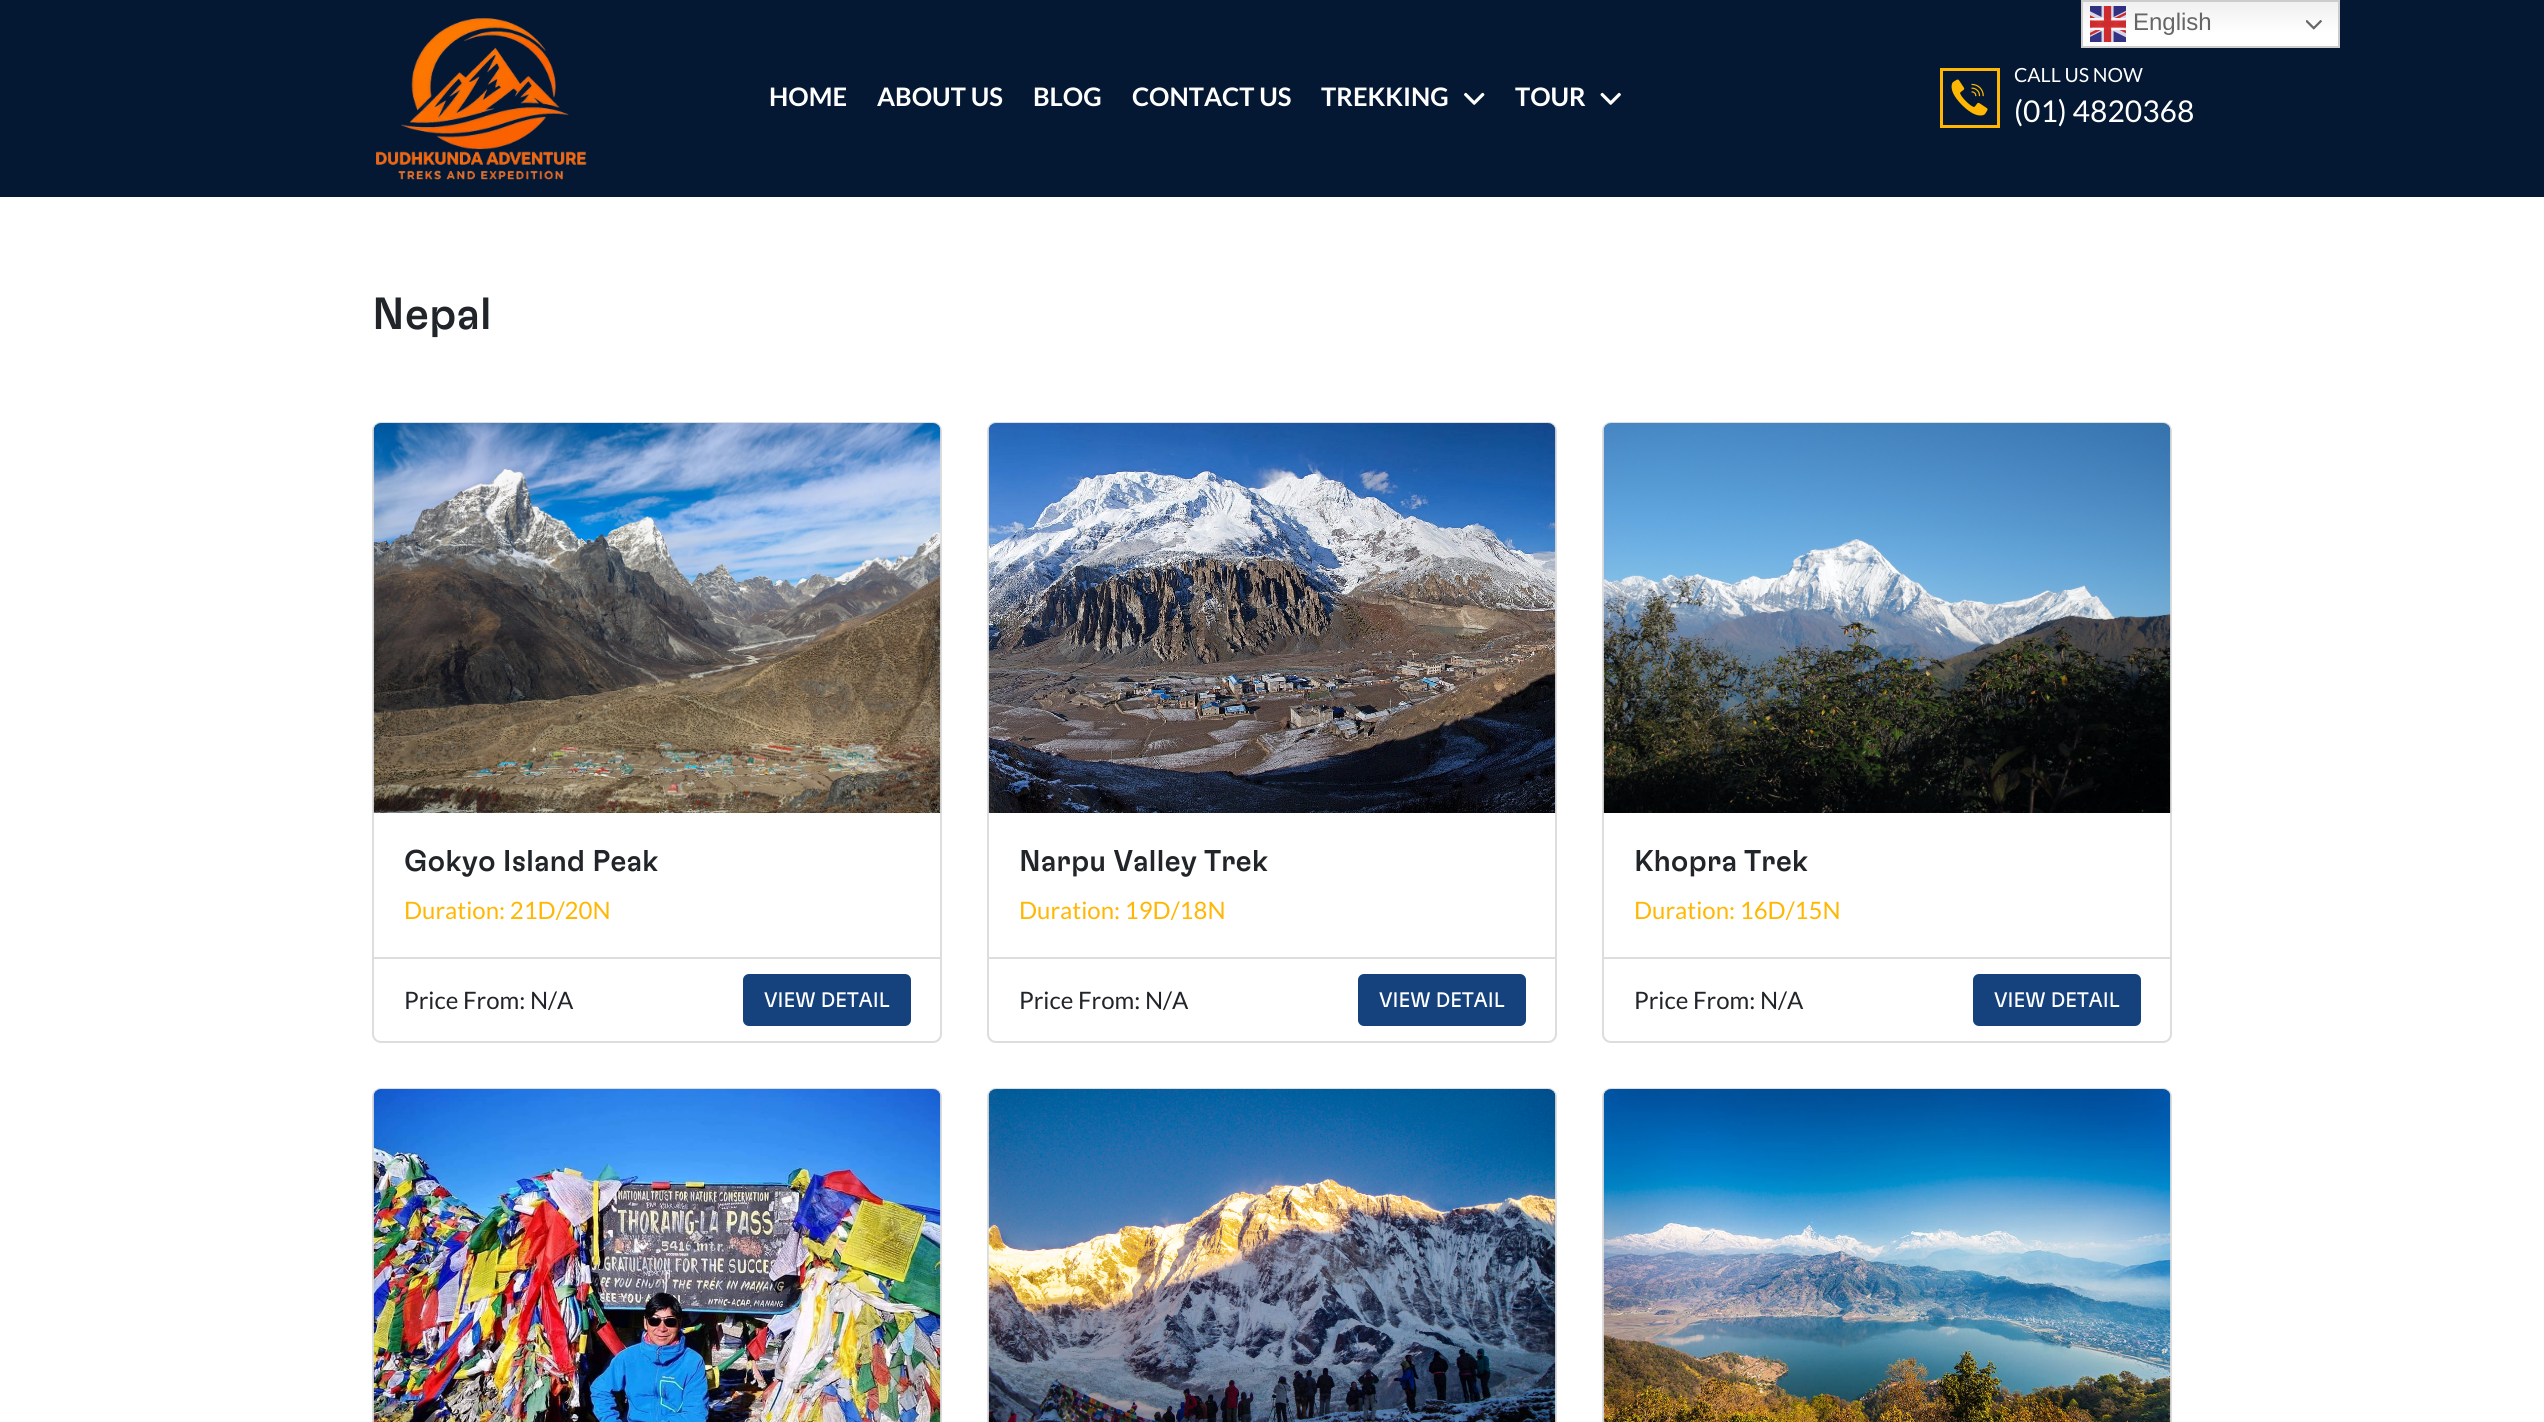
import math
import cairocffi as cairo

surface = cairo.ImageSurface(cairo.FORMAT_RGB24, 2544, 1422)
ctx = cairo.Context(surface)
options = cairo.FontOptions()
options.set_hint_metrics(cairo.HINT_METRICS_OFF)
options.set_hint_style(cairo.HINT_STYLE_NONE)
ctx.set_font_options(options)
ctx.set_miter_limit(4)


def rgb(r, g, b):
    ctx.set_source_rgb(r / 255, g / 255, b / 255)


def face(family, size, italic, bold):
    ctx.select_font_face(family, cairo.FONT_SLANT_ITALIC if italic else cairo.FONT_SLANT_NORMAL, cairo.FONT_WEIGHT_BOLD if bold else cairo.FONT_WEIGHT_NORMAL)
    ctx.set_font_size(size)


def label(x, y, s):
    ctx.move_to(x, y)
    ctx.show_text(s)


def rect(x, y, w, h):
    ctx.rectangle(x, y, w, h)
    ctx.fill()


def rrect(x, y, w, h, r):
    ctx.new_sub_path()
    for i, (u, v) in enumerate([(x + w - r, y + h - r), (x + r, y + h - r), (x + r, y + r), (x + w - r, y + r)]):
        ctx.arc(u, v, r, i * math.pi / 2, (i + 1) * math.pi / 2)
    ctx.close_path()


def image(path, x, y, w, h):
    ctx.save()
    ctx.set_source_surface(cairo.ImageSurface.create_from_png(path), x, y)
    ctx.rectangle(x, y, w, h)
    ctx.fill()
    ctx.restore()


rgb(255, 255, 255)
ctx.paint()
rgb(4, 24, 51)
rect(0, 0, 2544, 197)
gradient = cairo.LinearGradient(2210, 0, 2210, 48)
gradient.add_color_stop_rgba(0, 0.937, 0.937, 0.937, 1)
gradient.add_color_stop_rgba(0.7, 1, 1, 1, 1)
ctx.set_source(gradient)
rect(2083, 2, 255, 44)
ctx.rectangle(2082, 1, 257, 46)
rgb(204, 204, 204)
ctx.stroke()
image('image0.png', 2090, 6, 36, 36)
face('Liberation Sans', 24, 0, 0)
rgb(102, 102, 102)
label(2133, 30, 'English')
image('image1.png', 2306, 20, 16, 10)
image('image2.png', 376, 18, 211, 162)
face('Lato', 25.5, 0, 1)
rgb(255, 255, 255)
label(769, 106, 'HOME')
label(877, 106, 'ABOUT US')
label(1033, 106, 'BLOG')
label(1132, 106, 'CONTACT US')
label(1321, 106, 'TREKKING')
image('image3.png', 1464, 92, 21, 13)
label(1515, 106, 'TOUR')
image('image4.png', 1600, 92, 21, 13)
ctx.rectangle(1941.5, 69.5, 57, 57)
rgb(255, 183, 3)
ctx.set_line_width(3)
ctx.stroke()
image('image5.png', 1951, 79, 37, 37)
face('Lato', 19.5, 0, 0)
rgb(255, 255, 255)
label(2014, 82, 'CALL US NOW')
face('Lato', 30, 0, 0)
label(2014, 122, '(01) 4820368')
face('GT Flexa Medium', 45, 0, 0)
rgb(33, 37, 41)
label(372, 329, 'Nepal')
rrect(373, 423, 568, 619, 8)
rgb(221, 221, 221)
ctx.set_line_width(2)
ctx.stroke()
image('image6.png', 373, 423, 568, 390)
face('GT Flexa Medium', 30, 0, 0)
rgb(33, 37, 41)
label(404, 871, 'Gokyo Island Peak')
face('Lato', 24, 0, 0)
rgb(255, 183, 3)
label(404, 919, 'Duration: 21D/20N')
rgb(221, 221, 221)
rect(374, 957, 567, 2)
rgb(33, 37, 41)
label(404, 1009, 'Price From: N/A')
rgb(21, 66, 125)
rrect(743, 974, 168, 52, 6)
ctx.fill()
face('GT Flexa', 21, 0, 0)
rgb(255, 255, 255)
label(764, 1007, 'VIEW DETAIL')
rrect(988, 423, 568, 619, 8)
rgb(221, 221, 221)
ctx.stroke()
image('image7.png', 988, 423, 568, 390)
face('GT Flexa Medium', 30, 0, 0)
rgb(33, 37, 41)
label(1019, 871, 'Narpu Valley Trek')
face('Lato', 24, 0, 0)
rgb(255, 183, 3)
label(1019, 919, 'Duration: 19D/18N')
rgb(221, 221, 221)
rect(989, 957, 567, 2)
rgb(33, 37, 41)
label(1019, 1009, 'Price From: N/A')
rgb(21, 66, 125)
rrect(1358, 974, 168, 52, 6)
ctx.fill()
face('GT Flexa', 21, 0, 0)
rgb(255, 255, 255)
label(1379, 1007, 'VIEW DETAIL')
rrect(1603, 423, 568, 619, 8)
rgb(221, 221, 221)
ctx.stroke()
image('image8.png', 1603, 423, 568, 390)
face('GT Flexa Medium', 30, 0, 0)
rgb(33, 37, 41)
label(1634, 871, 'Khopra Trek')
face('Lato', 24, 0, 0)
rgb(255, 183, 3)
label(1634, 919, 'Duration: 16D/15N')
rgb(221, 221, 221)
rect(1604, 957, 567, 2)
rgb(33, 37, 41)
label(1634, 1009, 'Price From: N/A')
rgb(21, 66, 125)
rrect(1973, 974, 168, 52, 6)
ctx.fill()
face('GT Flexa', 21, 0, 0)
rgb(255, 255, 255)
label(1994, 1007, 'VIEW DETAIL')
rrect(373, 1089, 568, 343, 8)
rgb(221, 221, 221)
ctx.stroke()
image('image9.png', 373, 1089, 568, 333)
rrect(988, 1089, 568, 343, 8)
ctx.stroke()
image('image10.png', 988, 1089, 568, 333)
rrect(1603, 1089, 568, 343, 8)
ctx.stroke()
image('image11.png', 1603, 1089, 568, 333)
surface.write_to_png('render.png')
